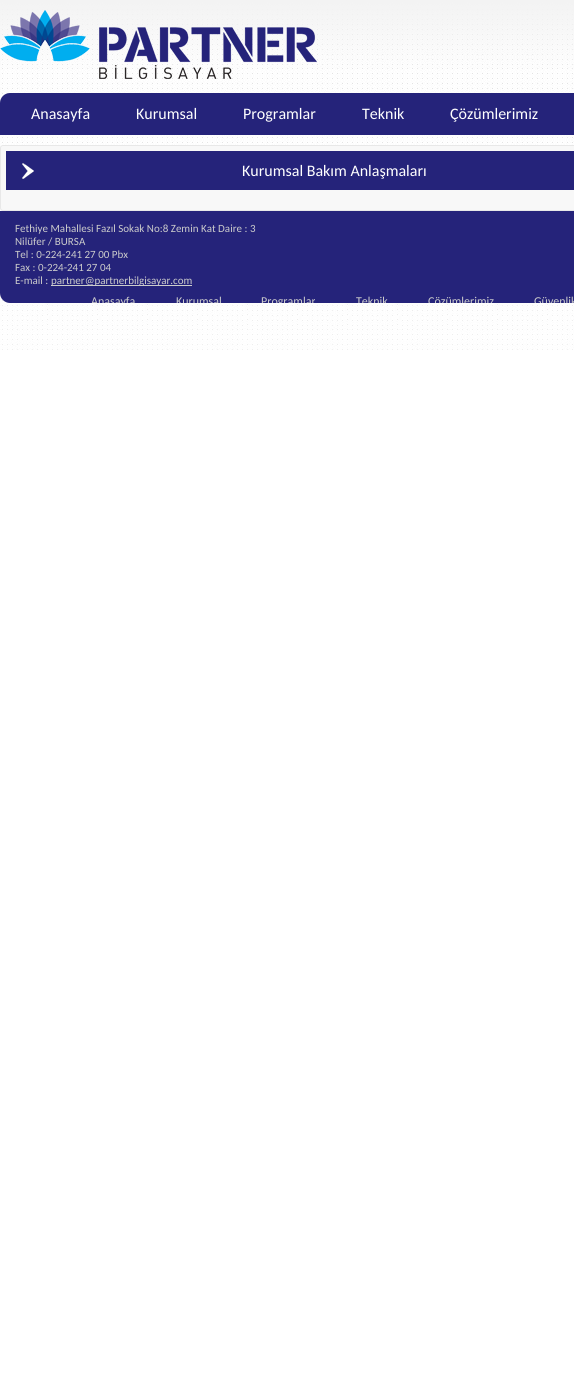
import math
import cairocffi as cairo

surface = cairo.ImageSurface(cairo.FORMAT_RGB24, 574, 1385)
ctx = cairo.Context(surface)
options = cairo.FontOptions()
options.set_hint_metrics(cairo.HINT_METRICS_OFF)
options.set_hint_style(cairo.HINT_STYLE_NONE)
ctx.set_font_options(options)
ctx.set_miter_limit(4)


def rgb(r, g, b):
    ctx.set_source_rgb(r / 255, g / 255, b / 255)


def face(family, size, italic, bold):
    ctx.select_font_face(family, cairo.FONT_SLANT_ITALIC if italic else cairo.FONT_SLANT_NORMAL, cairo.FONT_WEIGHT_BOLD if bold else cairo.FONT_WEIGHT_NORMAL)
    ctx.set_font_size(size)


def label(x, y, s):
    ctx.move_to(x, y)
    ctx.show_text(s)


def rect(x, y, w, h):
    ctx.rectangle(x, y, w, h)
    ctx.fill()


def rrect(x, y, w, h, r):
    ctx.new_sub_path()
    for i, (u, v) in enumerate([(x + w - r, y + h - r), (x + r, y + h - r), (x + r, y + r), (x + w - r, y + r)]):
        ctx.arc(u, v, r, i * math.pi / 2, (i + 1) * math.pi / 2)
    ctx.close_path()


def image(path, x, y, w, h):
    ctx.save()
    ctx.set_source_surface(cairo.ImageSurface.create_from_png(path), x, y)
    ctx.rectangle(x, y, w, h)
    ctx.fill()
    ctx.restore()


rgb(255, 255, 255)
ctx.paint()
image('image0.png', 0, 0, 574, 350)
image('image1.png', 0, 10, 317, 69)
rgb(37, 35, 122)
ctx.new_path()
ctx.move_to(10, 93)
ctx.line_to(574, 93)
ctx.curve_to(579.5, 93, 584, 97.5, 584, 103)
ctx.line_to(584, 133)
ctx.line_to(0, 133)
ctx.line_to(0, 103)
ctx.curve_to(0, 97.5, 4.5, 93, 10, 93)
ctx.close_path()
ctx.fill()
face('Carlito', 16, 0, 0)
rgb(255, 255, 255)
label(31, 119, 'Anasayfa')
label(136, 119, 'Kurumsal')
label(243, 119, 'Programlar')
label(362, 119, 'Teknik')
label(450, 119, 'Çözümlerimiz')
rgb(37, 35, 122)
rect(0, 133, 574, 2)
rgb(248, 248, 248)
rrect(0.5, 145.5, 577, 65, 2.5)
ctx.fill_preserve()
rgb(232, 232, 232)
ctx.set_line_width(1)
ctx.stroke()
rgb(37, 35, 122)
rect(6, 151, 568, 39)
image('image2.png', 22, 163, 12, 16)
rgb(255, 255, 255)
label(242, 176, 'Kurumsal Bakım Anlaşmaları')
rgb(37, 35, 122)
rect(0, 211, 574, 2)
ctx.new_path()
ctx.move_to(0, 213)
ctx.line_to(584, 213)
ctx.line_to(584, 293)
ctx.curve_to(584, 298.5, 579.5, 303, 574, 303)
ctx.line_to(10, 303)
ctx.curve_to(4.5, 303, 0, 298.5, 0, 293)
ctx.close_path()
ctx.fill()
face('Carlito', 11, 0, 0)
rgb(204, 204, 204)
label(15, 232, 'Fethiye Mahallesi Fazıl Sokak No:8 Zemin Kat Daire : 3')
label(15, 245, 'Nilüfer / BURSA')
label(15, 258, 'Tel : 0-224-241 27 00 Pbx')
label(15, 271, 'Fax : 0-224-241 27 04')
label(15, 284, 'E-mail :')
rect(51, 285, 141, 1)
label(51, 284, 'partner@partnerbilgisayar.com')
ctx.save()
ctx.new_path()
ctx.move_to(0, 213)
ctx.line_to(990, 213)
ctx.line_to(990, 293)
ctx.curve_to(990, 298.5, 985.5, 303, 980, 303)
ctx.line_to(10, 303)
ctx.curve_to(4.5, 303, 0, 298.5, 0, 293)
ctx.close_path()
ctx.clip()
face('Carlito', 12, 0, 0)
label(91, 305, 'Anasayfa')
label(176, 305, 'Kurumsal')
label(261, 305, 'Programlar')
label(356, 305, 'Teknik')
label(428, 305, 'Çözümlerimiz')
label(534, 305, 'Güvenlik')
ctx.restore()
surface.write_to_png('render.png')
